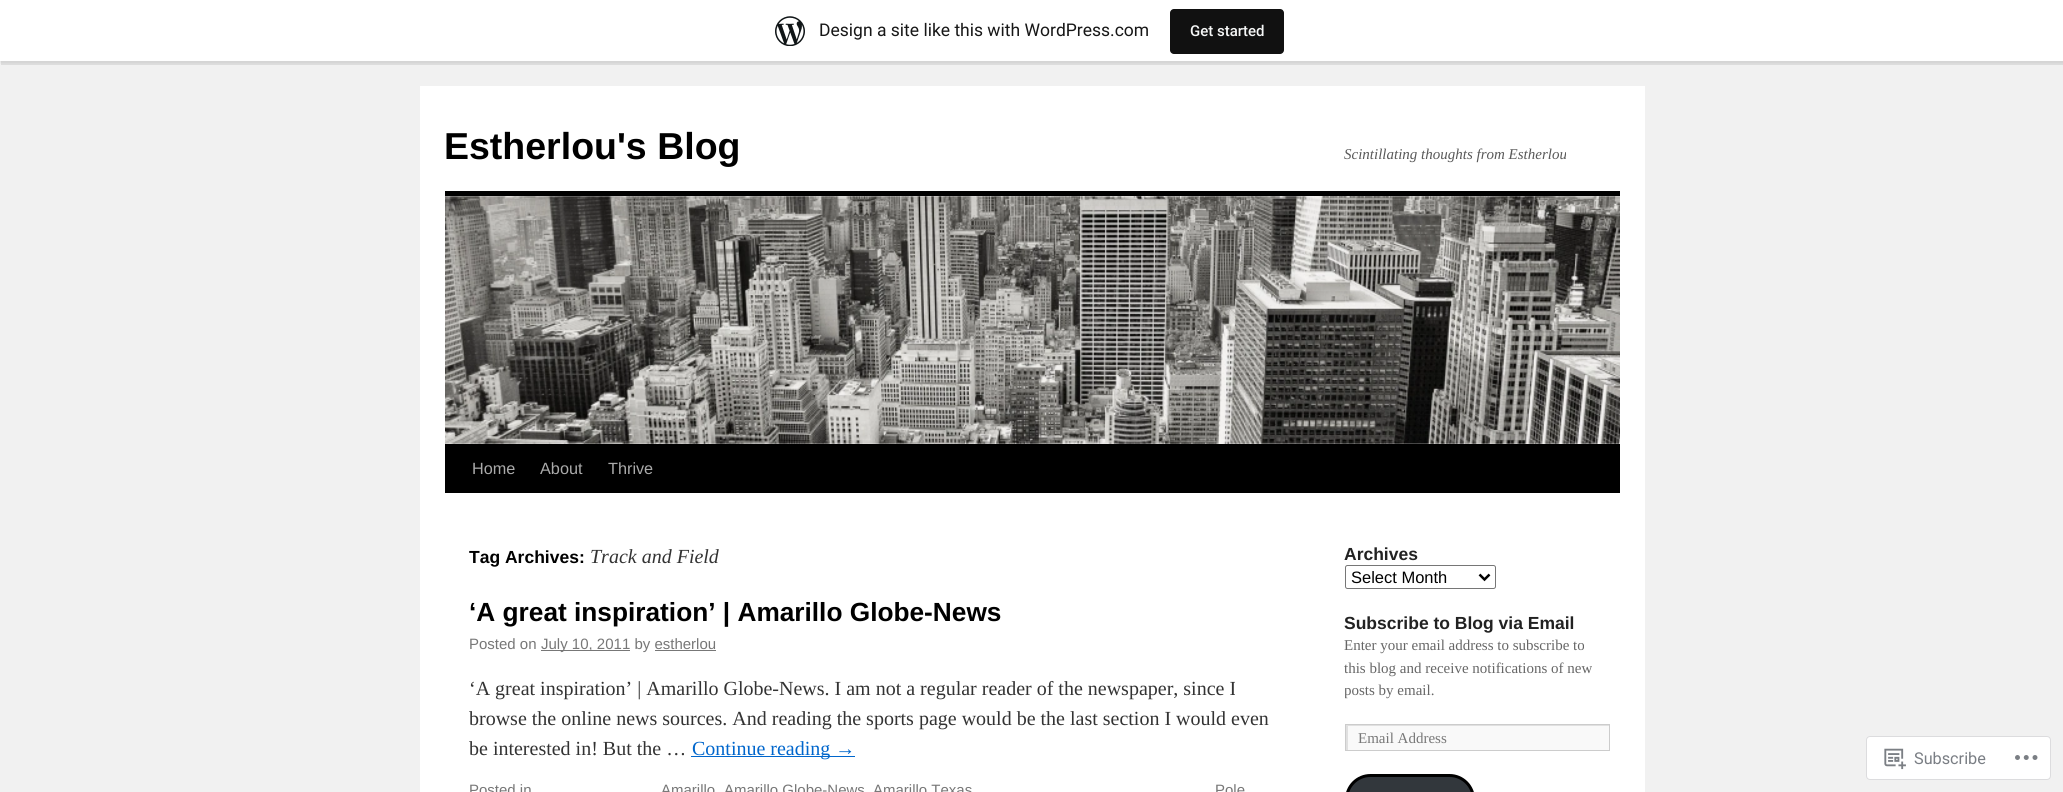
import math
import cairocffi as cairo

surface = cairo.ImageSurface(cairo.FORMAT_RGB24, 2063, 792)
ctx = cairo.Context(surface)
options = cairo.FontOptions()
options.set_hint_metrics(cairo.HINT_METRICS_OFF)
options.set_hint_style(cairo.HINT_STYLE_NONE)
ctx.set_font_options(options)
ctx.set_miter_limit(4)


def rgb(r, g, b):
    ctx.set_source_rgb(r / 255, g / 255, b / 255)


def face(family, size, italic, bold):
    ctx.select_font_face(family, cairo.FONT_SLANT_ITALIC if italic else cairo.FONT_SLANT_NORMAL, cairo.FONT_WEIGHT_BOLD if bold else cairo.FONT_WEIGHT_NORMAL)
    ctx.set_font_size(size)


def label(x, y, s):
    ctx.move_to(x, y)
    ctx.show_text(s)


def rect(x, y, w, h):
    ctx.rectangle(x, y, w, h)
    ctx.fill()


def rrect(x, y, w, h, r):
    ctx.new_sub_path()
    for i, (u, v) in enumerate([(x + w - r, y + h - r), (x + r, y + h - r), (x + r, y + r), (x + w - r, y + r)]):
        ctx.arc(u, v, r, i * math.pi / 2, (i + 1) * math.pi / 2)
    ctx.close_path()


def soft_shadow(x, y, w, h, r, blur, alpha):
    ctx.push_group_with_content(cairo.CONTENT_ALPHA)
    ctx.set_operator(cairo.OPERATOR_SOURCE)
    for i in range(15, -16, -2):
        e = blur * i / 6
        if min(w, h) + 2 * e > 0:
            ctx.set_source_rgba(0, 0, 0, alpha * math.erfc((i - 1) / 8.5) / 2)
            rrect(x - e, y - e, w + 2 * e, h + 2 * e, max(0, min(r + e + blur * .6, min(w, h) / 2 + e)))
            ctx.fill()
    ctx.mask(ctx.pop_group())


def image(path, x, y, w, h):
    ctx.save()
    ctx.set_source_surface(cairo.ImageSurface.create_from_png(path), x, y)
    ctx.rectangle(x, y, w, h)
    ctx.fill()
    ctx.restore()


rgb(241, 241, 241)
ctx.paint()
rgb(0, 0, 0)
soft_shadow(0, 1, 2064, 62, 0, 1, 0.05)
ctx.set_source_rgba(0, 0, 0, 0.08)
ctx.new_path()
ctx.move_to(1, 61)
ctx.line_to(1, 65)
ctx.line_to(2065, 65)
ctx.line_to(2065, 4)
ctx.line_to(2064, 4)
ctx.line_to(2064, 61)
ctx.close_path()
ctx.fill()
rgb(255, 255, 255)
rect(0, 0, 2063, 61)
image('image0.png', 775, 16, 30, 30)
face('Roboto', 17.5, 0, 0)
rgb(23, 23, 23)
label(819, 36, 'Design a site like this with WordPress.com')
rgb(17, 17, 17)
rrect(1170, 9, 114, 45, 4)
ctx.fill()
face('Roboto Medium', 15, 0, 0)
rgb(246, 247, 247)
label(1190, 36, 'Get started')
rgb(255, 255, 255)
rect(420, 86, 1225, 706)
face('Liberation Sans', 37.5, 0, 1)
rgb(0, 0, 0)
label(444, 159, 'Estherlou\'s Blog')
face('Liberation Serif', 15, 1, 0)
rgb(89, 89, 89)
label(1344, 159, 'Scintillating thoughts from Estherlou')
rgb(0, 0, 0)
rect(445, 191, 1175, 5)
rect(445, 444, 1175, 49)
image('image1.png', 445, 196, 1175, 248)
face('Liberation Sans', 16.25, 0, 0)
rgb(170, 170, 170)
label(472, 474, 'Home')
label(540, 474, 'About')
label(608, 474, 'Thrive')
face('Liberation Sans', 17.5, 0, 1)
rgb(0, 0, 0)
label(469, 563, 'Tag Archives:')
face('Liberation Serif', 20, 1, 0)
rgb(51, 51, 51)
label(590, 563, 'Track and Field')
face('Liberation Sans', 26.25, 0, 1)
rgb(0, 0, 0)
label(469, 621, '‘A great inspiration’ | Amarillo Globe-News')
face('Liberation Sans', 15, 0, 0)
rgb(119, 119, 119)
label(469, 649, 'Posted on')
rect(541, 650, 89, 1)
label(541, 649, 'July 10, 2011 by estherlou')
rect(655, 650, 61, 1)
face('Liberation Serif', 20, 0, 0)
rgb(51, 51, 51)
label(469, 695, '‘A great inspiration’ | Amarillo Globe-News. I am not a regular reader of the newspaper, since I')
label(469, 725, 'browse the online news sources. And reading the sports page would be the last section I would even')
label(469, 755, 'be interested in! But the …')
rgb(0, 102, 204)
rect(691, 756, 164, 1)
label(692, 755, 'Continue reading →')
face('Liberation Sans', 15, 0, 0)
rgb(119, 119, 119)
label(469, 795, 'Posted in')
label(661, 795, 'Amarillo')
label(724, 795, 'Amarillo Globe-News')
label(873, 795, 'Amarillo Texas')
label(1215, 795, 'Pole')
face('Liberation Sans', 17.5, 0, 1)
rgb(34, 34, 34)
label(1344, 560, 'Archives')
rrect(1345.5, 565.5, 150, 23, 2)
rgb(118, 118, 118)
ctx.set_line_width(1)
ctx.stroke()
ctx.new_path()
ctx.move_to(1479.5, 574.5)
ctx.line_to(1484.5, 579.5)
ctx.line_to(1489.5, 574.5)
rgb(0, 0, 0)
ctx.set_line_width(2.5)
ctx.stroke()
face('Liberation Sans', 16.5, 0, 0)
label(1351, 583, 'Select Month')
face('Liberation Sans', 17.5, 0, 1)
rgb(34, 34, 34)
label(1344, 629, 'Subscribe to Blog via Email')
face('Liberation Serif', 15, 0, 0)
rgb(102, 102, 102)
label(1344, 650, 'Enter your email address to subscribe to')
label(1344, 673, 'this blog and receive notifications of new')
ctx.save()
ctx.rectangle(1345, 543, 275, 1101)
ctx.clip()
label(1344, 695, 'posts by email.')
ctx.restore()
rgb(249, 249, 249)
rect(1348, 726, 261, 24)
ctx.save()
ctx.rectangle(1346, 725, 263, 25)
ctx.clip()
rgb(224, 224, 224)
ctx.set_fill_rule(cairo.FILL_RULE_EVEN_ODD)
ctx.new_path()
ctx.move_to(1222, 601)
ctx.line_to(1732, 601)
ctx.line_to(1732, 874)
ctx.line_to(1222, 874)
ctx.close_path()
ctx.move_to(1348, 726)
ctx.line_to(1610, 726)
ctx.line_to(1610, 751)
ctx.line_to(1348, 751)
ctx.close_path()
ctx.fill()
ctx.restore()
ctx.rectangle(1345.5, 724.5, 264, 26)
rgb(204, 204, 204)
ctx.set_line_width(1)
ctx.stroke()
rgb(119, 119, 119)
label(1358, 743, 'Email Address')
rgb(50, 55, 60)
rrect(1346.5, 775.5, 127, 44, 24)
ctx.fill_preserve()
rgb(0, 0, 0)
ctx.set_line_width(3)
ctx.stroke()
rgb(255, 255, 255)
rrect(1866.5, 736.5, 184, 43, 3.5)
ctx.fill_preserve()
rgb(220, 220, 222)
ctx.set_line_width(1)
ctx.stroke()
image('image2.png', 1884, 748, 22, 22)
face('Roboto', 16.25, 0, 0)
rgb(122, 126, 132)
label(1914, 764, 'Subscribe')
image('image3.png', 2015, 755, 23, 5)
surface.write_to_png('render.png')
